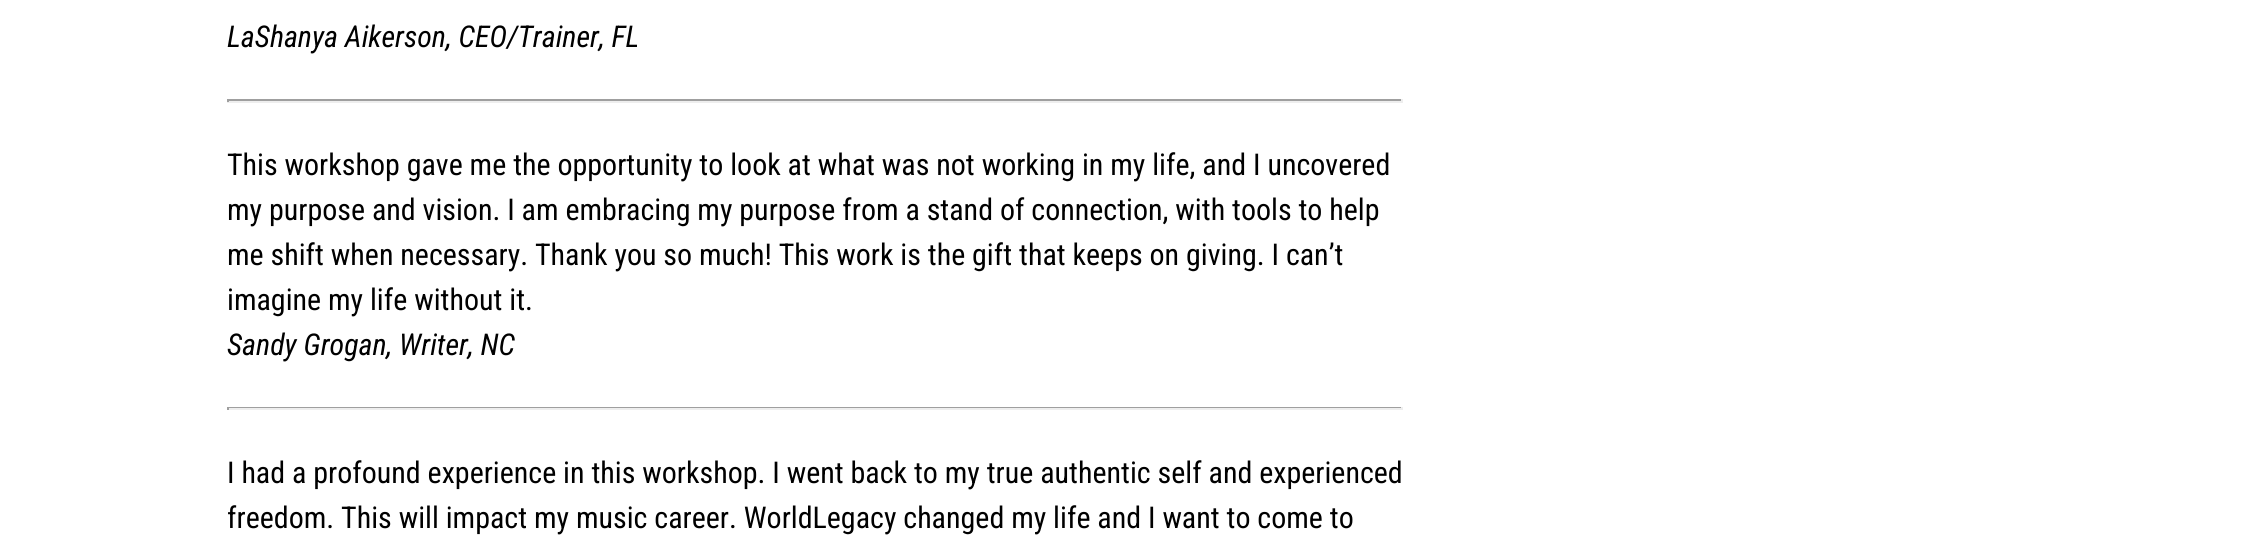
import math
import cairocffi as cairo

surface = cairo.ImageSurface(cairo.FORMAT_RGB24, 2252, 558)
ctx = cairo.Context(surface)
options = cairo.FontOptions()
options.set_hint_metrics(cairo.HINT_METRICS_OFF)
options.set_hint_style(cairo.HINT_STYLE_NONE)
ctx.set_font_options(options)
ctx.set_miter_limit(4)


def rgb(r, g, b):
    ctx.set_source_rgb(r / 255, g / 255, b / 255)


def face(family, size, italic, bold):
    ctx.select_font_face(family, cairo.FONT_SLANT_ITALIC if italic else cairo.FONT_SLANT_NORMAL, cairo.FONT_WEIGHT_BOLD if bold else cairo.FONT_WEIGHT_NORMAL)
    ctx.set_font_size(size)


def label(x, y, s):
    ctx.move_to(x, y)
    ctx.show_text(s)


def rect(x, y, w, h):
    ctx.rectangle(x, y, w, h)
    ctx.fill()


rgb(255, 255, 255)
ctx.paint()
face('Roboto Condensed', 30, 1, 0)
rgb(0, 0, 0)
label(227, 47, 'LaShanya Aikerson, CEO/Trainer, FL')
rgb(159, 159, 159)
rect(227, 99, 1176, 2)
rgb(238, 238, 238)
rect(1401, 99, 2, 3)
rect(227, 101, 1176, 2)
rgb(159, 159, 159)
rect(227, 99, 2, 3)
face('Roboto Condensed', 30, 0, 0)
rgb(0, 0, 0)
label(227, 175, 'This workshop gave me the opportunity to look at what was not working in my life, and I uncovered')
label(227, 220, 'my purpose and vision. I am embracing my purpose from a stand of connection, with tools to help')
label(227, 265, 'me shift when necessary. Thank you so much! This work is the gift that keeps on giving. I can’t')
label(227, 310, 'imagine my life without it.')
face('Roboto Condensed', 30, 1, 0)
label(227, 355, 'Sandy Grogan, Writer, NC')
rgb(159, 159, 159)
rect(227, 407, 1176, 1)
rgb(238, 238, 238)
rect(1401, 407, 2, 3)
rect(227, 408, 1176, 2)
rgb(159, 159, 159)
rect(227, 407, 2, 3)
face('Roboto Condensed', 30, 0, 0)
rgb(0, 0, 0)
label(227, 483, 'I had a profound experience in this workshop. I went back to my true authentic self and experienced')
label(227, 528, 'freedom. This will impact my music career. WorldLegacy changed my life and I want to come to')
surface.write_to_png('render.png')
